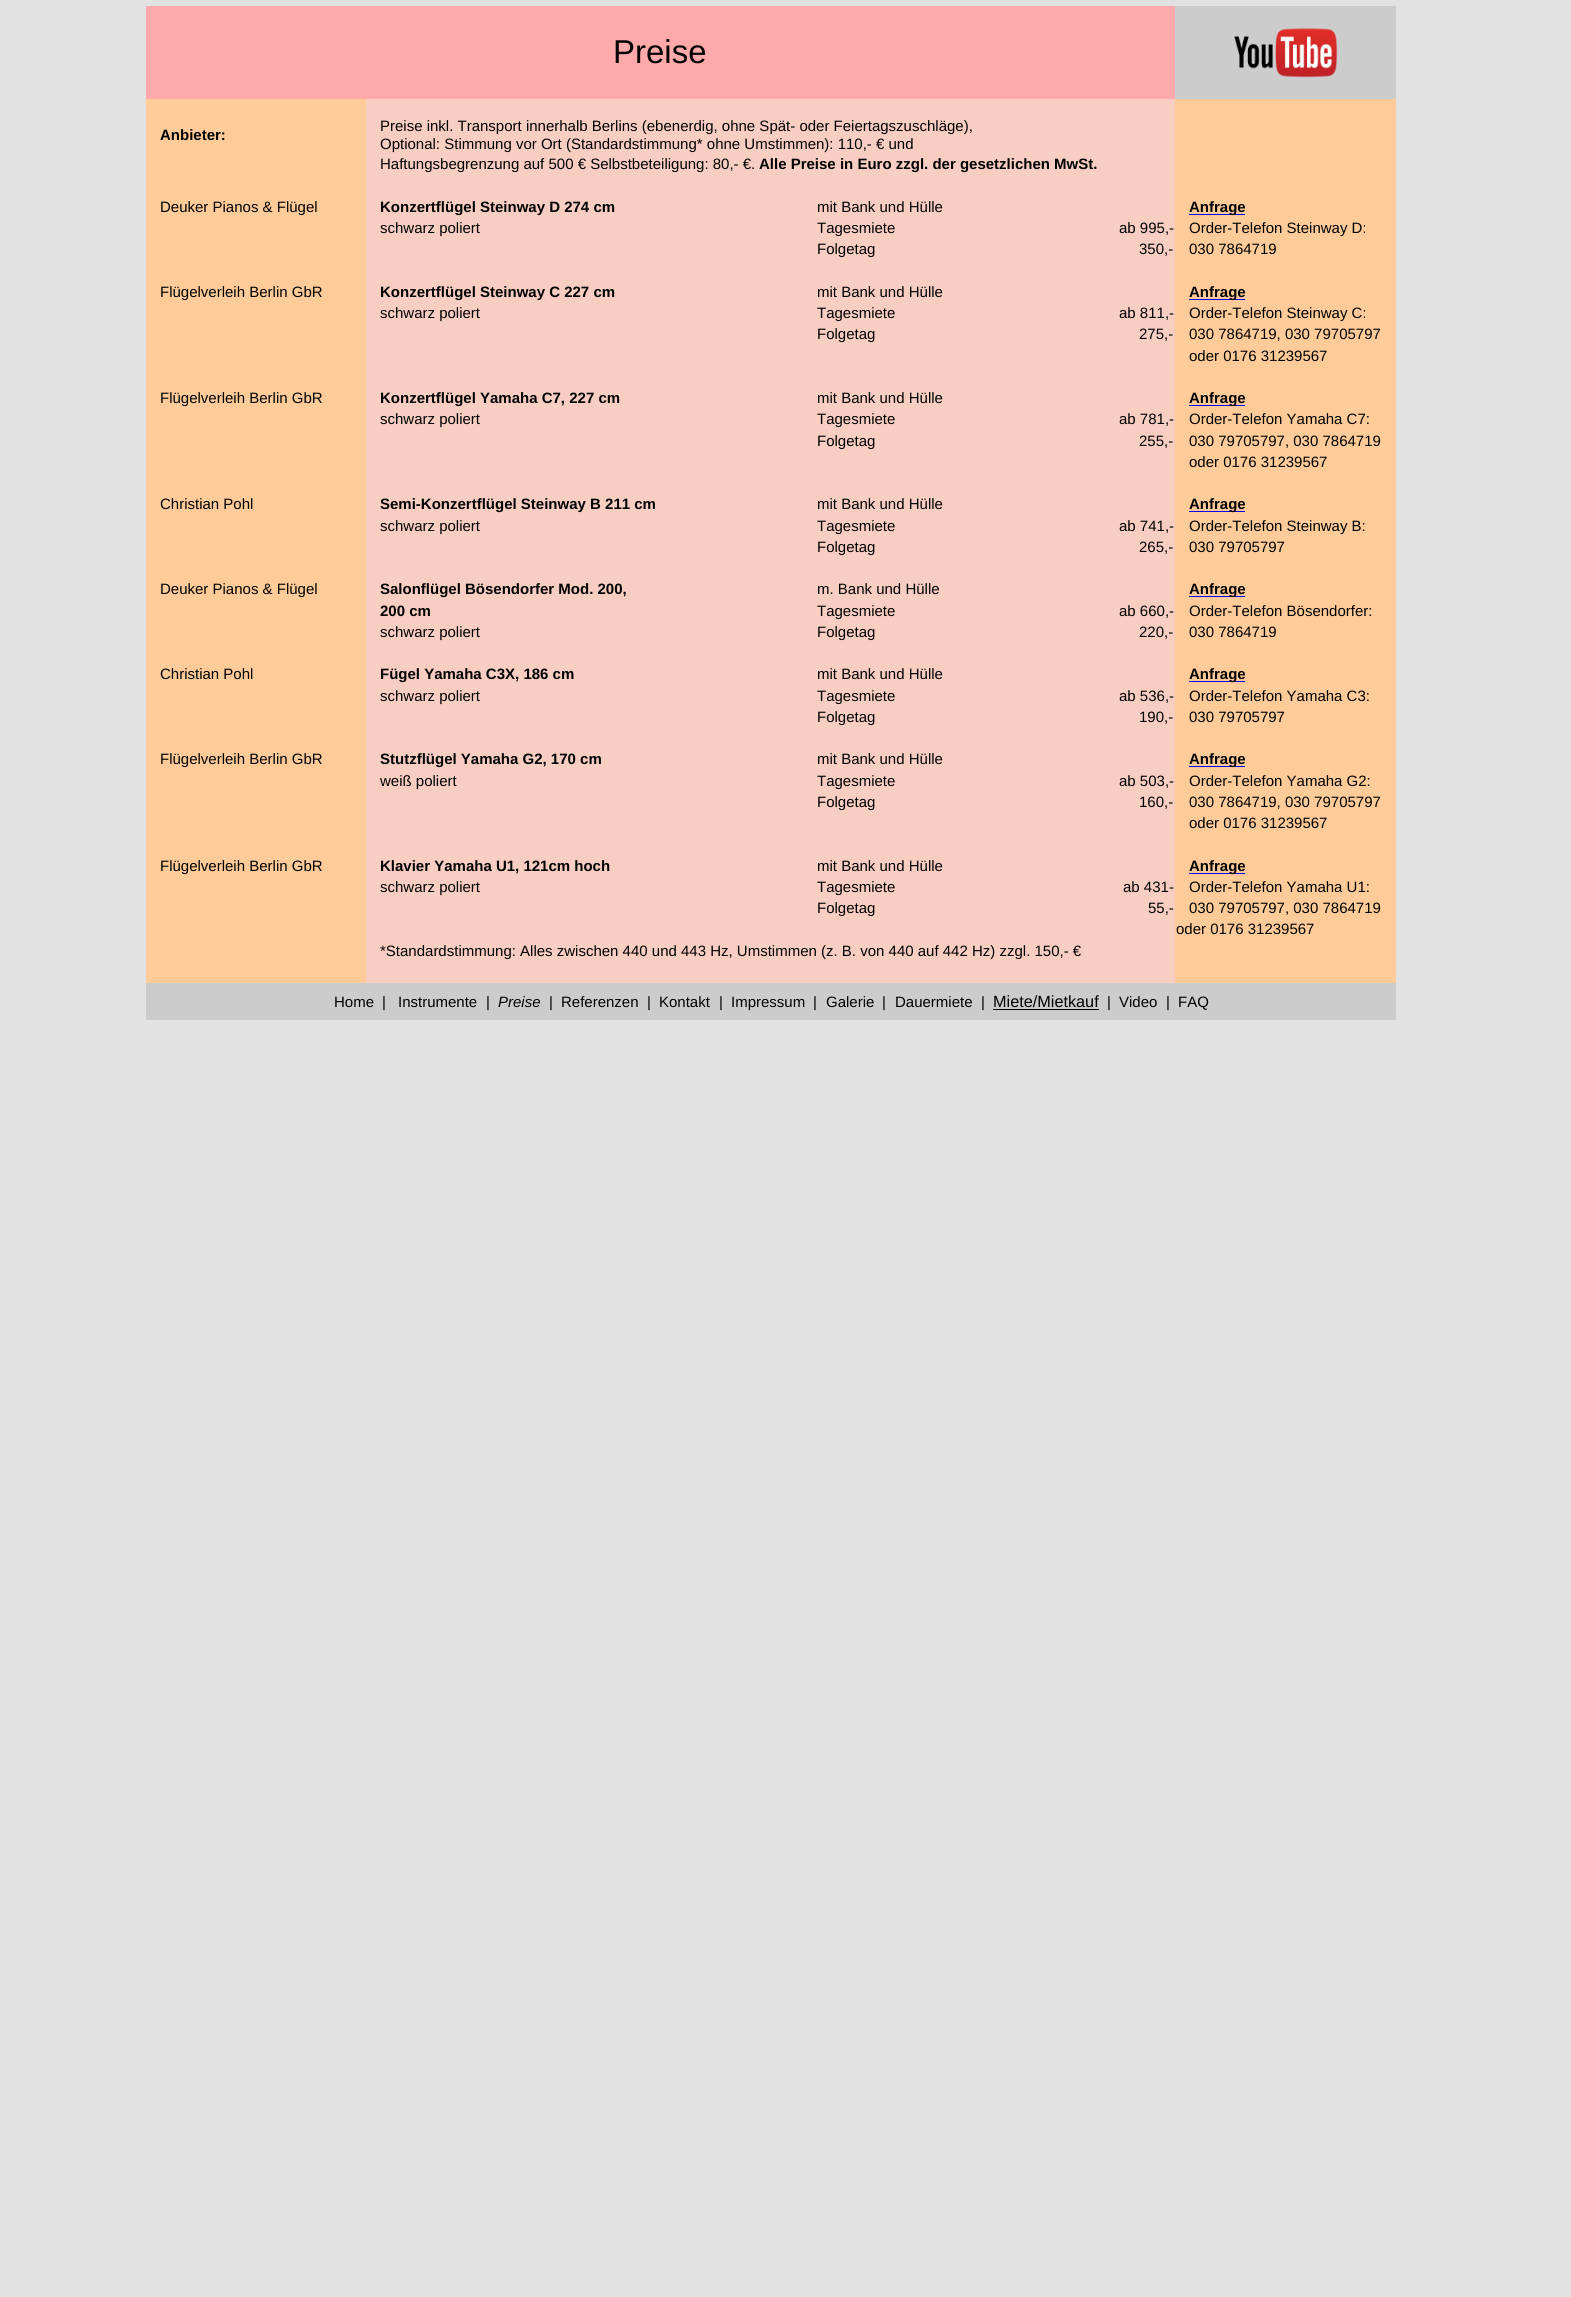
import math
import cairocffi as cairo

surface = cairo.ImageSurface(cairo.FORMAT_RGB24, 1571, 2297)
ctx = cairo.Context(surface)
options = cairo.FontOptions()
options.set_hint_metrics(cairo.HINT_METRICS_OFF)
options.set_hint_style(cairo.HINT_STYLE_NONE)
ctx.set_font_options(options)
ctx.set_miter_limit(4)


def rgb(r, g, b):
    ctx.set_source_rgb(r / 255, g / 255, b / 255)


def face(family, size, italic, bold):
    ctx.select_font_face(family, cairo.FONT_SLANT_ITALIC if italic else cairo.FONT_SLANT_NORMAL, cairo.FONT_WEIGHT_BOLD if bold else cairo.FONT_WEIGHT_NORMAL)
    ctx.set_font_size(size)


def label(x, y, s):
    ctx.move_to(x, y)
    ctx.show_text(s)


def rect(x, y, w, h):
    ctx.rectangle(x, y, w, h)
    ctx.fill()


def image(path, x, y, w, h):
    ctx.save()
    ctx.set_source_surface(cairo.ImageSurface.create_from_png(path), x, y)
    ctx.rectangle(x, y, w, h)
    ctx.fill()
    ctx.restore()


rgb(226, 226, 226)
ctx.paint()
rgb(248, 206, 194)
rect(366, 99, 809, 884)
rgb(255, 170, 170)
rect(146, 6, 1029, 93)
face('Liberation Sans', 33, 0, 0)
rgb(0, 0, 0)
label(613, 63, 'Preise')
rgb(204, 204, 204)
rect(1175, 6, 221, 93)
image('image0.png', 1234, 28, 104, 50)
rgb(255, 204, 153)
rect(146, 99, 220, 884)
face('Liberation Sans', 15, 0, 1)
rgb(0, 0, 0)
label(160, 140, 'Anbieter:')
face('Liberation Sans', 15, 0, 0)
label(380, 131, 'Preise inkl. Transport innerhalb Berlins (ebenerdig, ohne Spät- oder Feiertagszuschläge),')
label(380, 149, 'Optional: Stimmung vor Ort (Standardstimmung* ohne Umstimmen): 110,- € und')
rgb(255, 204, 153)
rect(1175, 99, 221, 884)
rgb(0, 0, 0)
label(380, 169, 'Haftungsbegrenzung auf 500 € Selbstbeteiligung: 80,- €.')
face('Liberation Sans', 15, 0, 1)
label(759, 169, 'Alle Preise in Euro zzgl. der gesetzlichen MwSt.')
face('Liberation Sans', 15, 0, 0)
label(160, 212, 'Deuker Pianos & Flügel')
face('Liberation Sans', 15, 0, 1)
label(380, 212, 'Konzertflügel Steinway D 274 cm')
face('Liberation Sans', 15, 0, 0)
label(817, 212, 'mit Bank und Hülle')
rgb(0, 0, 238)
rect(1189, 214, 56, 1)
face('Liberation Sans', 15, 0, 1)
rgb(0, 0, 0)
label(1189, 212, 'Anfrage')
face('Liberation Sans', 15, 0, 0)
label(380, 233, 'schwarz poliert')
label(817, 233, 'Tagesmiete')
label(1119, 233, 'ab 995,-')
label(1189, 233, 'Order-Telefon Steinway D:')
label(817, 254, 'Folgetag')
label(1139, 254, '350,-')
label(1189, 254, '030 7864719')
label(160, 297, 'Flügelverleih Berlin GbR')
face('Liberation Sans', 15, 0, 1)
label(380, 297, 'Konzertflügel Steinway C 227 cm')
face('Liberation Sans', 15, 0, 0)
label(817, 297, 'mit Bank und Hülle')
rgb(0, 0, 238)
rect(1189, 299, 56, 1)
face('Liberation Sans', 15, 0, 1)
rgb(0, 0, 0)
label(1189, 297, 'Anfrage')
face('Liberation Sans', 15, 0, 0)
label(380, 318, 'schwarz poliert')
label(817, 318, 'Tagesmiete')
label(1119, 318, 'ab 811,-')
label(1189, 318, 'Order-Telefon Steinway C:')
label(817, 339, 'Folgetag')
label(1139, 339, '275,-')
label(1189, 339, '030 7864719, 030 79705797')
label(1189, 361, 'oder 0176 31239567')
label(160, 403, 'Flügelverleih Berlin GbR')
face('Liberation Sans', 15, 0, 1)
label(380, 403, 'Konzertflügel Yamaha C7, 227 cm')
face('Liberation Sans', 15, 0, 0)
label(817, 403, 'mit Bank und Hülle')
rgb(0, 0, 238)
rect(1189, 405, 56, 1)
face('Liberation Sans', 15, 0, 1)
rgb(0, 0, 0)
label(1189, 403, 'Anfrage')
face('Liberation Sans', 15, 0, 0)
label(380, 424, 'schwarz poliert')
label(817, 424, 'Tagesmiete')
label(1119, 424, 'ab 781,-')
label(1189, 424, 'Order-Telefon Yamaha C7:')
label(817, 446, 'Folgetag')
label(1139, 446, '255,-')
label(1189, 446, '030 79705797, 030 7864719')
label(1189, 467, 'oder 0176 31239567')
label(160, 509, 'Christian Pohl')
face('Liberation Sans', 15, 0, 1)
label(380, 509, 'Semi-Konzertflügel Steinway B 211 cm')
face('Liberation Sans', 15, 0, 0)
label(817, 509, 'mit Bank und Hülle')
rgb(0, 0, 238)
rect(1189, 511, 56, 1)
face('Liberation Sans', 15, 0, 1)
rgb(0, 0, 0)
label(1189, 509, 'Anfrage')
face('Liberation Sans', 15, 0, 0)
label(380, 531, 'schwarz poliert')
label(817, 531, 'Tagesmiete')
label(1119, 531, 'ab 741,-')
label(1189, 531, 'Order-Telefon Steinway B:')
label(817, 552, 'Folgetag')
label(1139, 552, '265,-')
label(1189, 552, '030 79705797')
label(160, 594, 'Deuker Pianos & Flügel')
face('Liberation Sans', 15, 0, 1)
label(380, 594, 'Salonflügel Bösendorfer Mod. 200,')
face('Liberation Sans', 15, 0, 0)
label(817, 594, 'm. Bank und Hülle')
rgb(0, 0, 238)
rect(1189, 596, 56, 1)
face('Liberation Sans', 15, 0, 1)
rgb(0, 0, 0)
label(1189, 594, 'Anfrage')
label(380, 616, '200 cm')
face('Liberation Sans', 15, 0, 0)
label(817, 616, 'Tagesmiete')
label(1119, 616, 'ab 660,-')
label(1189, 616, 'Order-Telefon Bösendorfer:')
label(380, 637, 'schwarz poliert')
label(817, 637, 'Folgetag')
label(1139, 637, '220,-')
label(1189, 637, '030 7864719')
label(160, 679, 'Christian Pohl')
face('Liberation Sans', 15, 0, 1)
label(380, 679, 'Fügel Yamaha C3X, 186 cm')
face('Liberation Sans', 15, 0, 0)
label(817, 679, 'mit Bank und Hülle')
rgb(0, 0, 238)
rect(1189, 681, 56, 1)
face('Liberation Sans', 15, 0, 1)
rgb(0, 0, 0)
label(1189, 679, 'Anfrage')
face('Liberation Sans', 15, 0, 0)
label(380, 701, 'schwarz poliert')
label(817, 701, 'Tagesmiete')
label(1119, 701, 'ab 536,-')
label(1189, 701, 'Order-Telefon Yamaha C3:')
label(817, 722, 'Folgetag')
label(1139, 722, '190,-')
label(1189, 722, '030 79705797')
label(160, 764, 'Flügelverleih Berlin GbR')
face('Liberation Sans', 15, 0, 1)
label(380, 764, 'Stutzflügel Yamaha G2, 170 cm')
face('Liberation Sans', 15, 0, 0)
label(817, 764, 'mit Bank und Hülle')
rgb(0, 0, 238)
rect(1189, 766, 56, 1)
face('Liberation Sans', 15, 0, 1)
rgb(0, 0, 0)
label(1189, 764, 'Anfrage')
face('Liberation Sans', 15, 0, 0)
label(380, 786, 'weiß poliert')
label(817, 786, 'Tagesmiete')
label(1119, 786, 'ab 503,-')
label(1189, 786, 'Order-Telefon Yamaha G2:')
label(817, 807, 'Folgetag')
label(1139, 807, '160,-')
label(1189, 807, '030 7864719, 030 79705797')
label(1189, 828, 'oder 0176 31239567')
label(160, 871, 'Flügelverleih Berlin GbR')
face('Liberation Sans', 15, 0, 1)
label(380, 871, 'Klavier Yamaha U1, 121cm hoch')
face('Liberation Sans', 15, 0, 0)
label(817, 871, 'mit Bank und Hülle')
rgb(0, 0, 238)
rect(1189, 873, 56, 1)
face('Liberation Sans', 15, 0, 1)
rgb(0, 0, 0)
label(1189, 871, 'Anfrage')
face('Liberation Sans', 15, 0, 0)
label(380, 892, 'schwarz poliert')
label(817, 892, 'Tagesmiete')
label(1123, 892, 'ab 431-')
label(1189, 892, 'Order-Telefon Yamaha U1:')
label(817, 913, 'Folgetag')
label(1148, 913, '55,-')
label(1189, 913, '030 79705797, 030 7864719')
label(1176, 934, 'oder 0176 31239567')
label(380, 956, '*Standardstimmung: Alles zwischen 440 und 443 Hz, Umstimmen (z. B. von 440 auf 442 Hz) zzgl. 150,- €')
rgb(204, 204, 204)
rect(146, 983, 1250, 37)
rgb(0, 0, 0)
label(334, 1007, 'Home')
label(382, 1007, '|')
label(398, 1007, 'Instrumente')
label(486, 1007, '|')
face('Liberation Sans', 15, 1, 0)
label(498, 1007, 'Preise')
face('Liberation Sans', 15, 0, 0)
label(549, 1007, '|')
label(561, 1007, 'Referenzen')
label(647, 1007, '|')
label(659, 1007, 'Kontakt')
label(719, 1007, '|')
label(731, 1007, 'Impressum')
label(813, 1007, '|')
label(826, 1007, 'Galerie')
label(882, 1007, '|')
label(895, 1007, 'Dauermiete')
label(981, 1007, '|')
face('Liberation Sans', 16.25, 0, 0)
label(993, 1007, 'Miete/Mietkauf')
rect(993, 1009, 106, 1)
face('Liberation Sans', 15, 0, 0)
label(1107, 1007, '|')
label(1119, 1007, 'Video')
label(1166, 1007, '|')
label(1178, 1007, 'FAQ')
surface.write_to_png('render.png')
